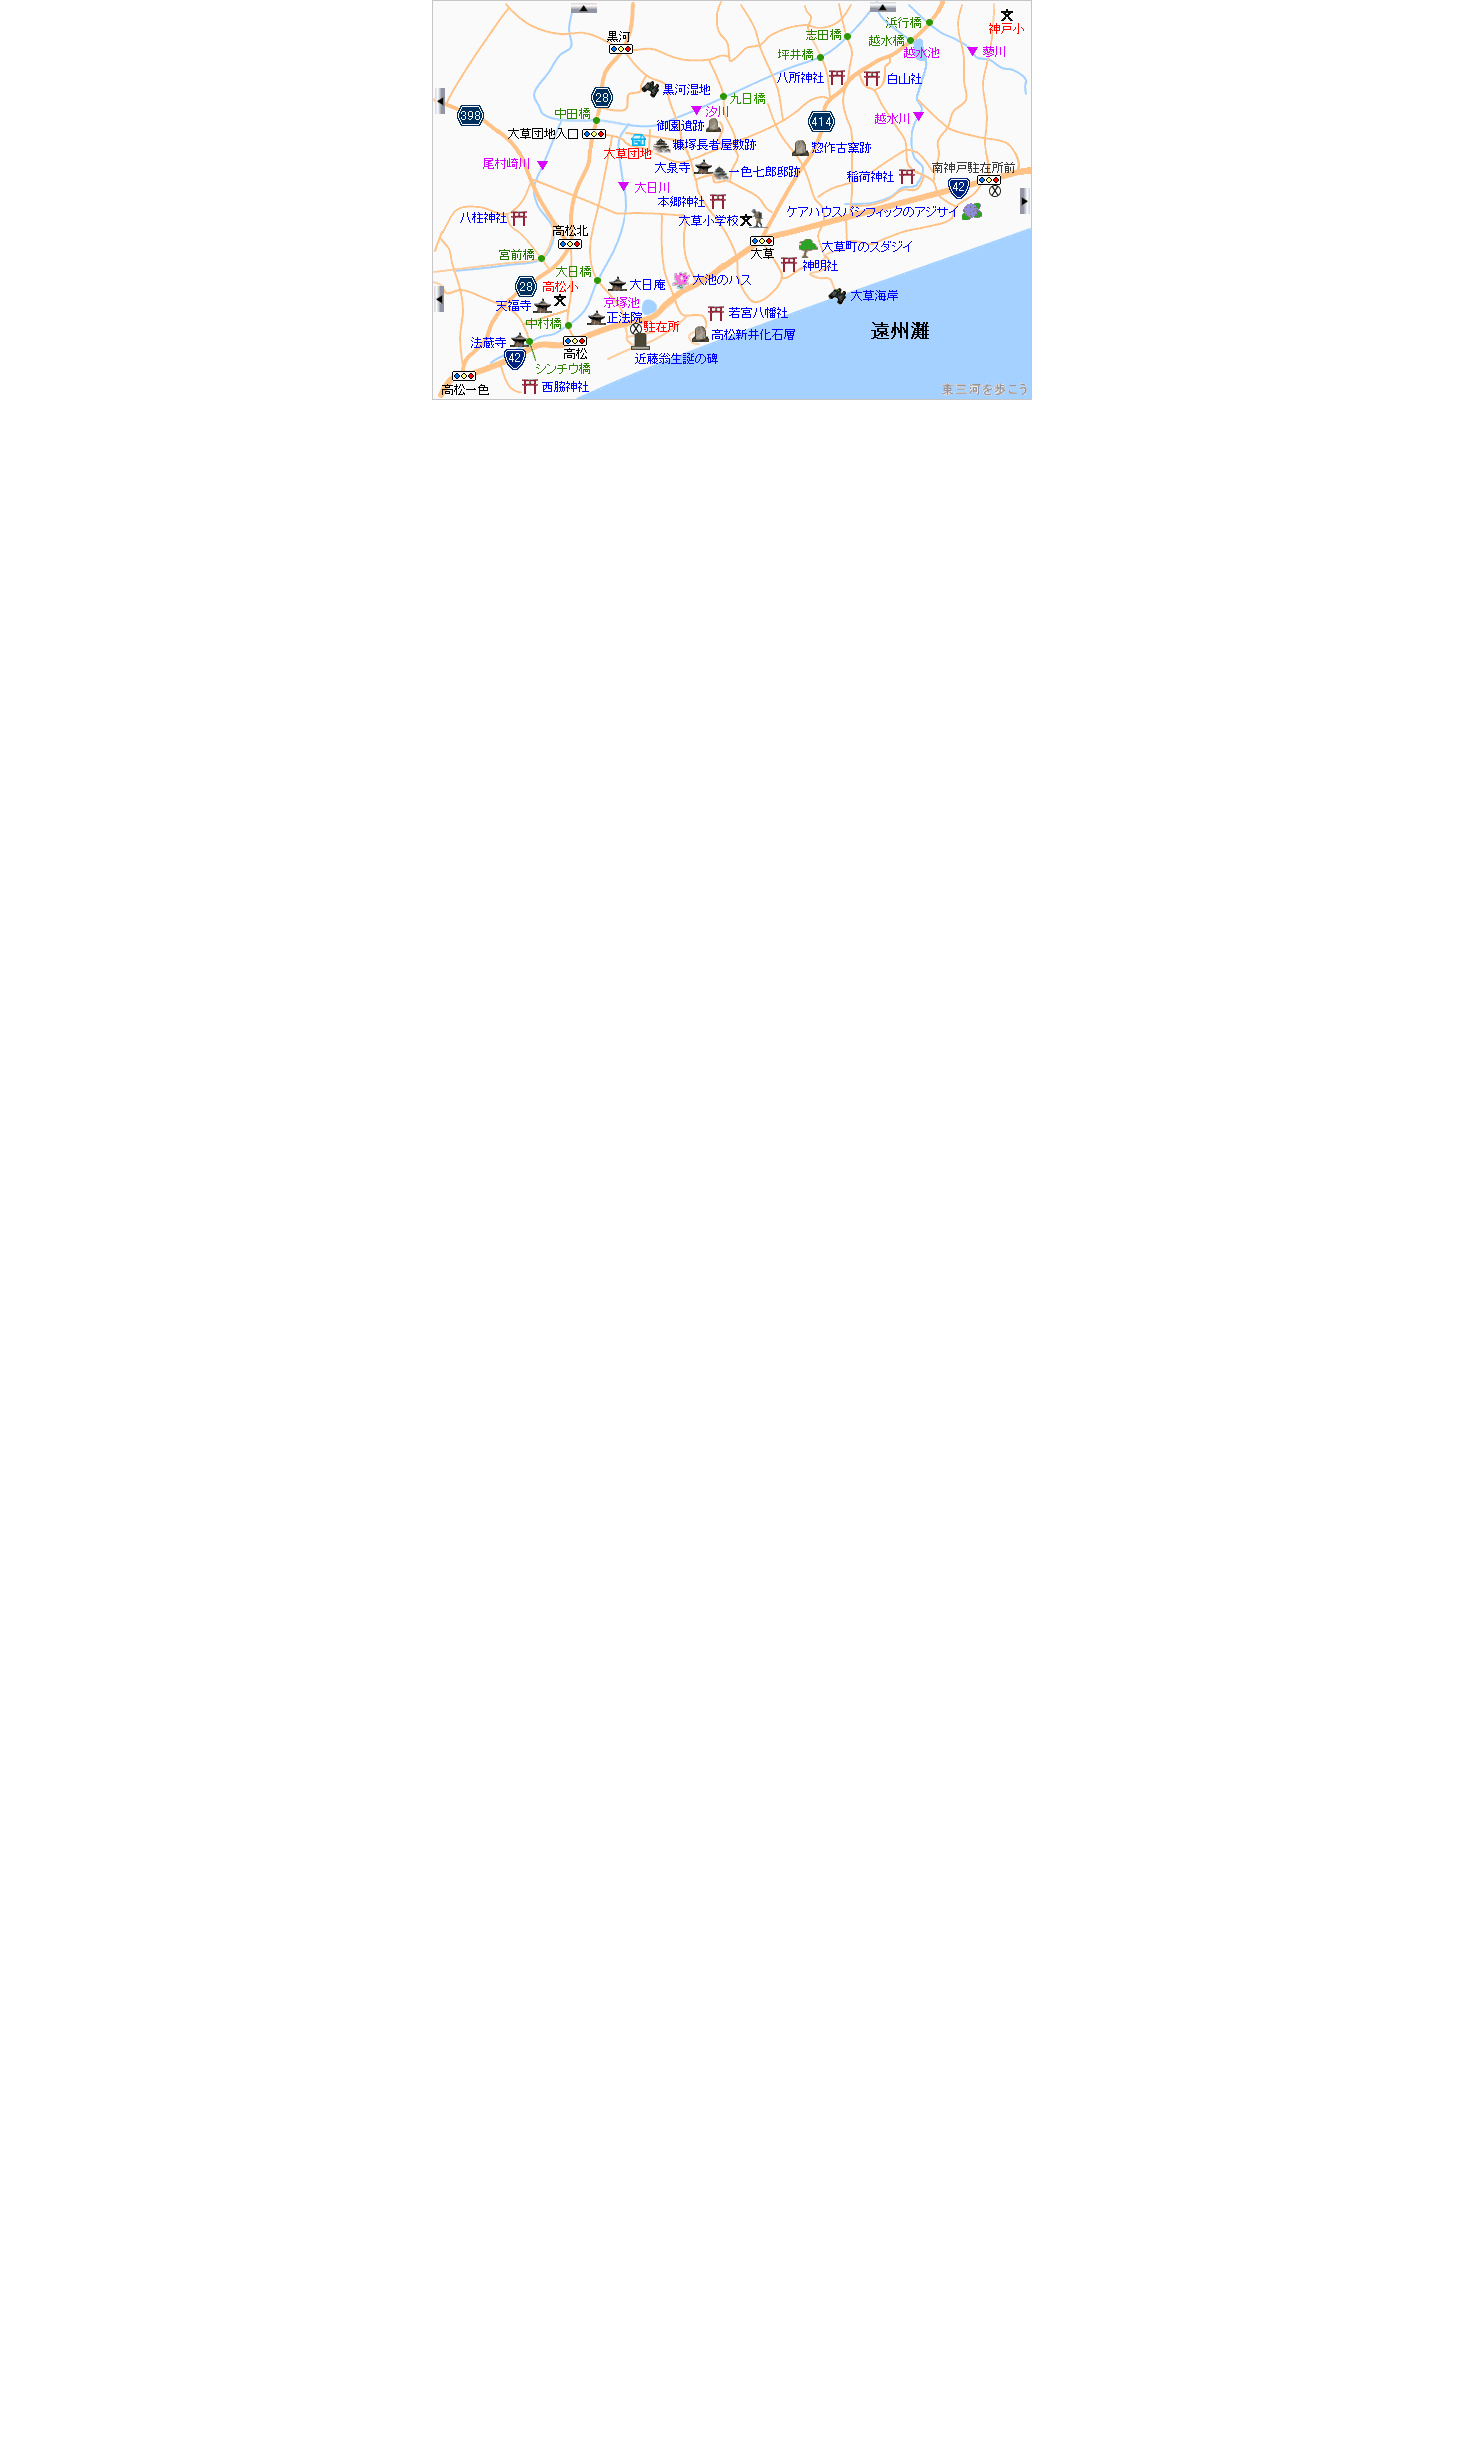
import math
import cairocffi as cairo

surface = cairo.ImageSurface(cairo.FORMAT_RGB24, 1463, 2455)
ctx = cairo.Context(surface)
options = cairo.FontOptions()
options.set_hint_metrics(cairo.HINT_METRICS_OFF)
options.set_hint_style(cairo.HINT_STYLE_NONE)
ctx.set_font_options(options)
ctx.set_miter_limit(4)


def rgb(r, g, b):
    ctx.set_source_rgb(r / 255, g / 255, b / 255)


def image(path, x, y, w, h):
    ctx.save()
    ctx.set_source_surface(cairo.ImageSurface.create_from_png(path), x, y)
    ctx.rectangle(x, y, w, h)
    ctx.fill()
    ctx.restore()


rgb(255, 255, 255)
ctx.paint()
image('image0.png', 432, 0, 600, 400)
surface.write_to_png('render.png')
